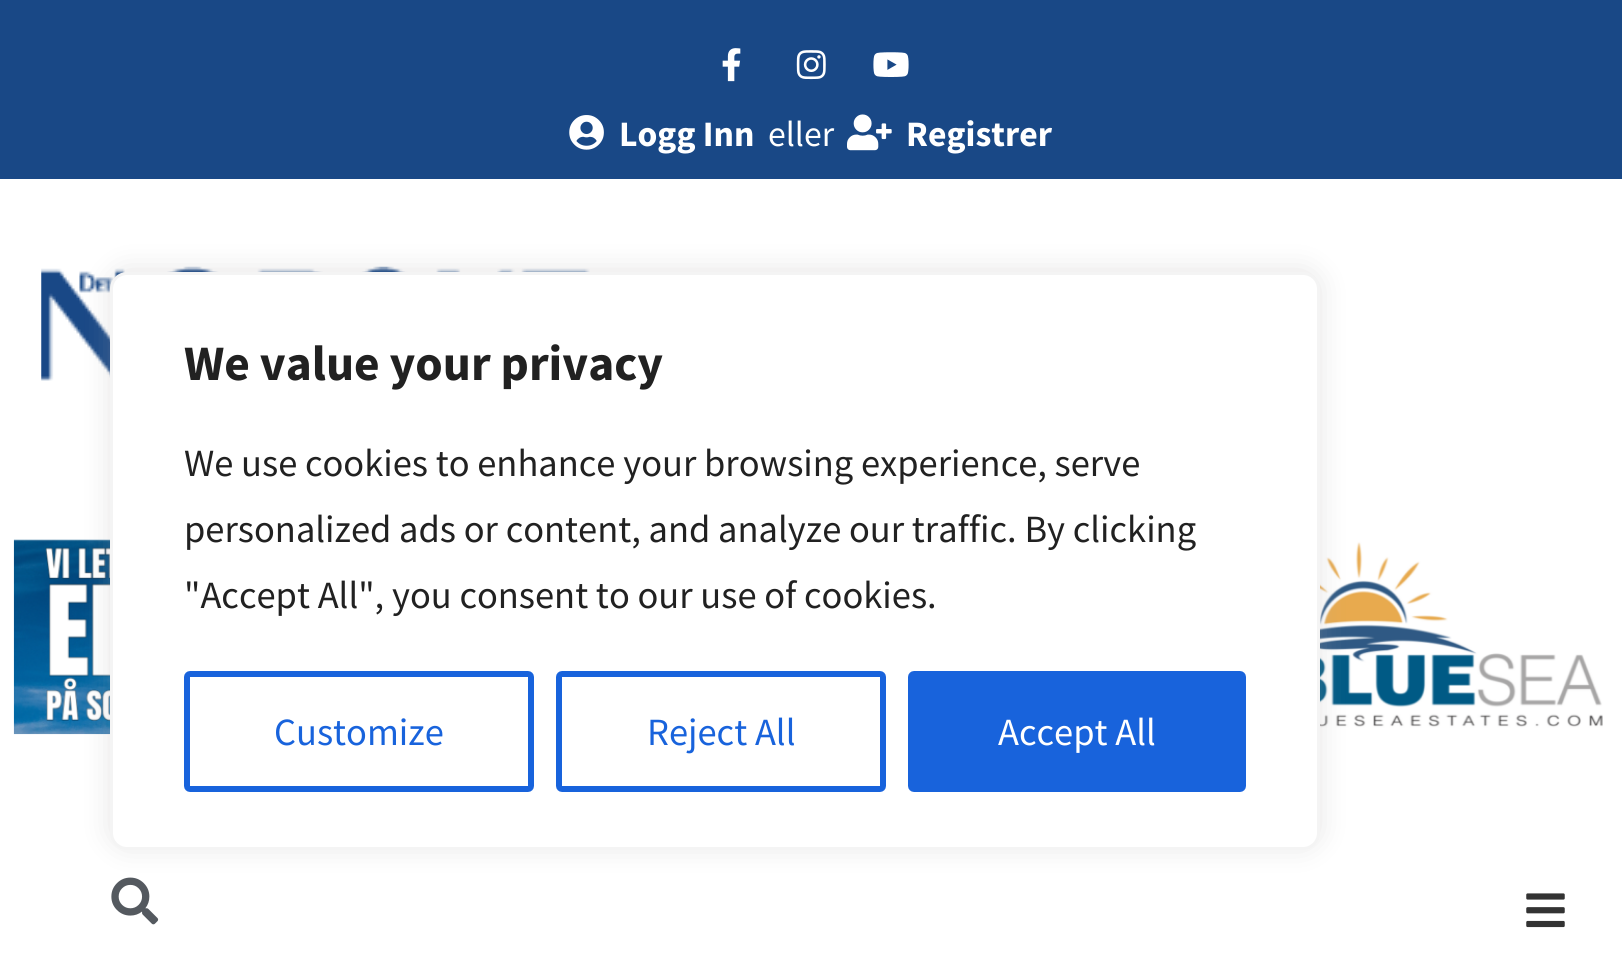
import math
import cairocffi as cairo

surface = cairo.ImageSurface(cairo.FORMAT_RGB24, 1622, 958)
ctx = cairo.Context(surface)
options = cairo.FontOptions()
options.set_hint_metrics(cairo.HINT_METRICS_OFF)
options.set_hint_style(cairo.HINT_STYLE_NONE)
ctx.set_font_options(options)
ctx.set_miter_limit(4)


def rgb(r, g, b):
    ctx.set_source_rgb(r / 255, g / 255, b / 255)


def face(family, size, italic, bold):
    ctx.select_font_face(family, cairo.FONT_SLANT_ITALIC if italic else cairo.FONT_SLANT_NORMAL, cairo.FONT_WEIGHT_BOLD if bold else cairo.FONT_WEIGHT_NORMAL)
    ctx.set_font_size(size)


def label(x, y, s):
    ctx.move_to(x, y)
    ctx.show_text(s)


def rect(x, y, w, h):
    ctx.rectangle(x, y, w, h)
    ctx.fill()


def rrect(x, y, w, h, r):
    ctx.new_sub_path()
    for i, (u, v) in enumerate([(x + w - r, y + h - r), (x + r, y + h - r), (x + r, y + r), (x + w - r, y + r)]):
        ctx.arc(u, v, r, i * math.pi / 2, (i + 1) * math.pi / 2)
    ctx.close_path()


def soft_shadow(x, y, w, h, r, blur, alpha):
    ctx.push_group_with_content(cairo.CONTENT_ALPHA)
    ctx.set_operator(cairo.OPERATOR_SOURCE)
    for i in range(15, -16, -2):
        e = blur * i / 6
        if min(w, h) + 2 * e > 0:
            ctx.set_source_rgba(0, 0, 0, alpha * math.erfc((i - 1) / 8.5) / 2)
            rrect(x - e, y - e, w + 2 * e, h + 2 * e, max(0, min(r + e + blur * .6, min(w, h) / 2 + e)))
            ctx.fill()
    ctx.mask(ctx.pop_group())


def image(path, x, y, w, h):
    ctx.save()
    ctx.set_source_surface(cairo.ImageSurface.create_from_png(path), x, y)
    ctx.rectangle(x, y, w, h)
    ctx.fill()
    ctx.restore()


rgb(255, 255, 255)
ctx.paint()
rgb(25, 72, 134)
rect(0, 0, 1622, 179)
image('image0.png', 722, 48, 19, 34)
image('image1.png', 796, 50, 30, 30)
image('image2.png', 873, 52, 36, 25)
image('image3.png', 569, 115, 35, 35)
face('Source Sans Pro', 35.75, 0, 1)
rgb(255, 255, 255)
label(619, 146, 'Logg Inn')
face('Source Sans Pro', 35.75, 0, 0)
label(768, 146, 'eller')
image('image4.png', 847, 114, 45, 37)
face('Source Sans Pro', 35.75, 0, 1)
label(906, 146, 'Registrer')
image('image5.png', 41, 266, 549, 115)
image('image6.png', 13, 539, 1590, 196)
image('image7.png', 111, 877, 48, 48)
image('image8.png', 1526, 893, 39, 35)
rgb(172, 171, 171)
soft_shadow(110, 270, 1210, 577, 17, 14, 0.3)
rgb(255, 255, 255)
rrect(111.5, 273.5, 1207, 575, 15.5)
ctx.fill_preserve()
rgb(244, 244, 244)
ctx.set_line_width(3)
ctx.stroke()
face('Source Sans Pro', 49.5, 0, 1)
rgb(33, 33, 33)
label(184, 380, 'We value your privacy')
face('Source Sans Pro', 38.5, 0, 0)
label(184, 476, 'We use cookies to enhance your browsing experience, serve')
label(184, 542, 'personalized ads or content, and analyze our traffic. By clicking')
label(184, 608, '"Accept All", you consent to our use of cookies.')
rrect(187, 674, 344, 115, 3)
rgb(24, 99, 220)
ctx.set_line_width(6)
ctx.stroke()
label(274, 745, 'Customize')
rrect(559, 674, 324, 115, 3)
ctx.stroke()
label(647, 745, 'Reject All')
rrect(911, 674, 332, 115, 3)
ctx.fill_preserve()
ctx.stroke()
rgb(255, 255, 255)
label(998, 745, 'Accept All')
surface.write_to_png('render.png')
